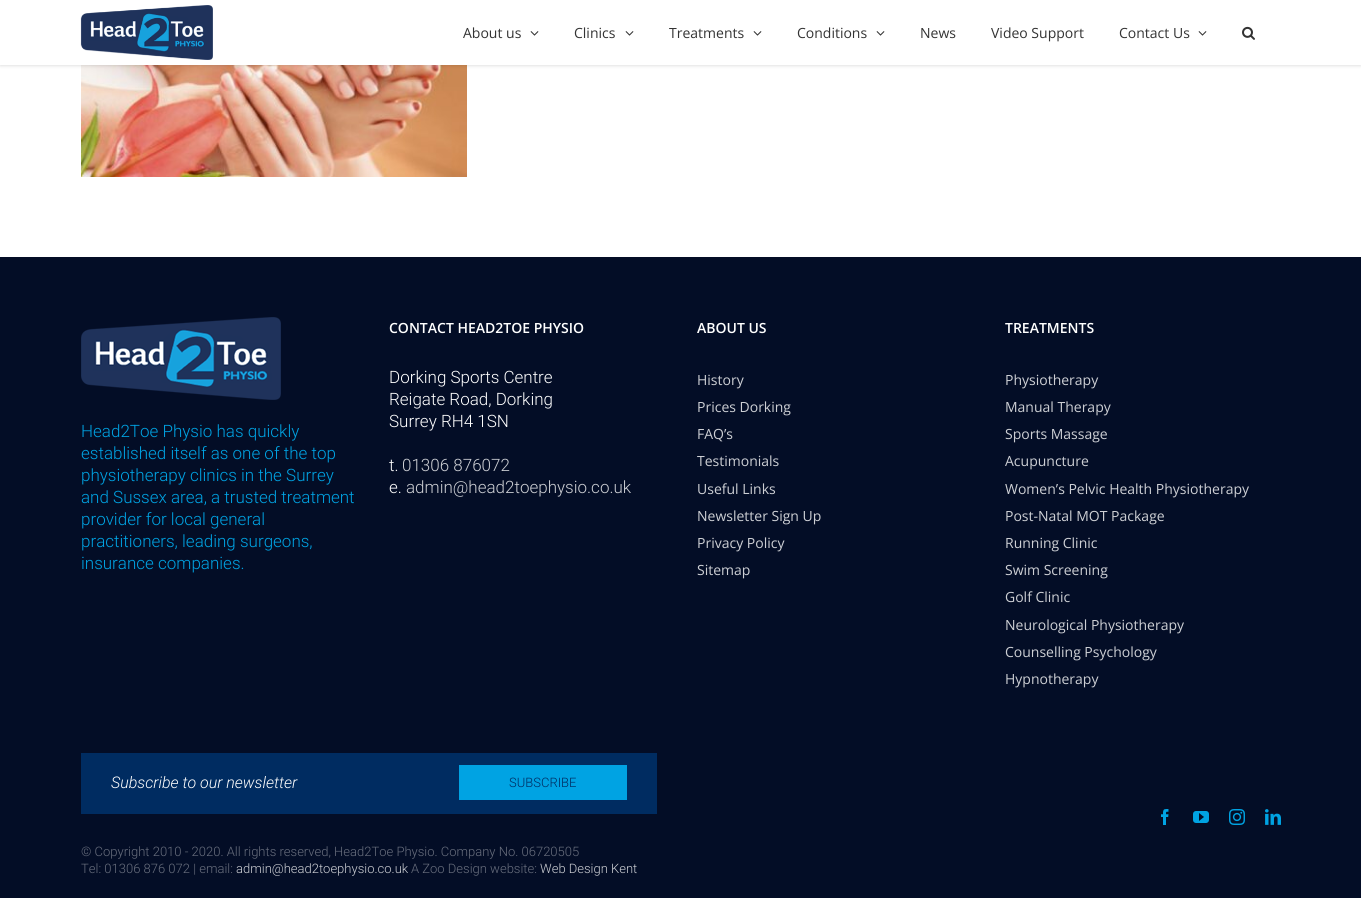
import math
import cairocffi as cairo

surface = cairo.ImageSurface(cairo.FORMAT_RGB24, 1361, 898)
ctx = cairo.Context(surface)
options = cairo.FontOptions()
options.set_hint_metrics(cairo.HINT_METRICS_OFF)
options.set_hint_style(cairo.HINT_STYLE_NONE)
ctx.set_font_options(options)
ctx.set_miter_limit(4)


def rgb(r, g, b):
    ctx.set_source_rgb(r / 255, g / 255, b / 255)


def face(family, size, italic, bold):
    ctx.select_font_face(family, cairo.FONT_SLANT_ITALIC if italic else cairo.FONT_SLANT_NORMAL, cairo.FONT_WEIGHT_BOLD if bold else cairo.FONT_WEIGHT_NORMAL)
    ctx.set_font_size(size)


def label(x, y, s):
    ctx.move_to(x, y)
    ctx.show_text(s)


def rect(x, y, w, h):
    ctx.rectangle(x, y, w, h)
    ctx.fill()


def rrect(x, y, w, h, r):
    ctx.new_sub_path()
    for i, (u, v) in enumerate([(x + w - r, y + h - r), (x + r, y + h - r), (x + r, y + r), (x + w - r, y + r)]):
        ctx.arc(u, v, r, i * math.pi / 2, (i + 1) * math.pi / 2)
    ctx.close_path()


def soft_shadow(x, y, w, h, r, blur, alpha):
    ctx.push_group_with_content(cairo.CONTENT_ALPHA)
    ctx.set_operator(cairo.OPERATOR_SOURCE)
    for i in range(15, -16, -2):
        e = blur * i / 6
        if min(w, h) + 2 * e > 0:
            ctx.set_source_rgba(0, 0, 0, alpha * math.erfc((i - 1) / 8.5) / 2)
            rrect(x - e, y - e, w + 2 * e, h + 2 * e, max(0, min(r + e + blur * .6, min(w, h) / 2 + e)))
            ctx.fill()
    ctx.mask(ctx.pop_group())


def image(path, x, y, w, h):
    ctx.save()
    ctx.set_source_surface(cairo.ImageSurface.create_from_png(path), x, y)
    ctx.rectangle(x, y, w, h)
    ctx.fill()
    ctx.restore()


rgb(255, 255, 255)
ctx.paint()
image('image3.png', 81, 65, 386, 112)
rgb(0, 0, 0)
soft_shadow(0, 1, 1361, 65, 0, 1.5, 0.12)
rgb(255, 255, 255)
rect(0, 0, 1361, 65)
image('image0.png', 80, 5, 133, 55)
face('Open Sans', 14, 0, 0)
rgb(51, 51, 51)
label(463, 38, 'About us')
image('image1.png', 530, 31, 9, 5)
label(574, 38, 'Clinics')
image('image1.png', 625, 31, 9, 5)
label(669, 38, 'Treatments')
image('image1.png', 753, 31, 9, 5)
label(797, 38, 'Conditions')
image('image1.png', 876, 31, 9, 5)
label(920, 38, 'News')
label(991, 38, 'Video Support')
label(1119, 38, 'Contact Us')
image('image1.png', 1198, 31, 9, 5)
image('image2.png', 1242, 26, 13, 14)
rgb(3, 13, 38)
rect(0, 257, 1361, 641)
image('image4.png', 81, 317, 200, 83)
face('Roboto Light', 17, 0, 0)
rgb(0, 163, 227)
label(81, 437, 'Head2Toe Physio has quickly')
label(81, 459, 'established itself as one of the top')
label(81, 481, 'physiotherapy clinics in the Surrey')
label(81, 503, 'and Sussex area, a trusted treatment')
label(81, 525, 'provider for local general')
label(81, 547, 'practitioners, leading surgeons,')
label(81, 569, 'insurance companies.')
face('Open Sans SemiBold', 14, 0, 0)
rgb(255, 255, 255)
label(389, 333, 'CONTACT HEAD2TOE PHYSIO')
face('Roboto Light', 17, 0, 0)
label(389, 383, 'Dorking Sports Centre')
label(389, 405, 'Reigate Road, Dorking')
label(389, 427, 'Surrey RH4 1SN')
label(389, 471, 't.')
rgb(205, 207, 212)
label(402, 471, '01306 876072')
rgb(255, 255, 255)
label(389, 493, 'e.')
rgb(205, 207, 212)
label(406, 493, 'admin@head2toephysio.co.uk')
face('Open Sans SemiBold', 14, 0, 0)
rgb(255, 255, 255)
label(697, 333, 'ABOUT US')
face('Open Sans', 14, 0, 0)
rgb(205, 207, 212)
label(697, 385, 'History')
label(697, 412, 'Prices Dorking')
label(697, 439, 'FAQ’s')
label(697, 466, 'Testimonials')
label(697, 494, 'Useful Links')
label(697, 521, 'Newsletter Sign Up')
label(697, 548, 'Privacy Policy')
label(697, 575, 'Sitemap')
face('Open Sans SemiBold', 14, 0, 0)
rgb(255, 255, 255)
label(1005, 333, 'TREATMENTS')
face('Open Sans', 14, 0, 0)
rgb(205, 207, 212)
label(1005, 385, 'Physiotherapy')
label(1005, 412, 'Manual Therapy')
label(1005, 439, 'Sports Massage')
label(1005, 466, 'Acupuncture')
label(1005, 494, 'Women’s Pelvic Health Physiotherapy')
label(1005, 521, 'Post-Natal MOT Package')
label(1005, 548, 'Running Clinic')
label(1005, 575, 'Swim Screening')
label(1005, 602, 'Golf Clinic')
label(1005, 630, 'Neurological Physiotherapy')
label(1005, 657, 'Counselling Psychology')
label(1005, 684, 'Hypnotherapy')
rgb(0, 44, 97)
rect(81, 753, 576, 61)
face('Roboto Light', 16, 1, 0)
rgb(255, 255, 255)
label(111, 788, 'Subscribe to our newsletter')
rgb(0, 163, 227)
rect(459, 765, 168, 35)
face('Roboto Light', 13, 0, 0)
rgb(0, 44, 97)
label(509, 787, 'SUBSCRIBE')
rgb(104, 110, 125)
label(81, 856, '© Copyright 2010 - 2020. All rights reserved, Head2Toe Physio. Company No. 06720505')
label(81, 873, 'Tel: 01306 876 072 | email:')
rgb(205, 207, 212)
label(236, 873, 'admin@head2toephysio.co.uk')
rgb(104, 110, 125)
label(411, 873, 'A Zoo Design website:')
rgb(205, 207, 212)
label(540, 873, 'Web Design Kent')
image('image5.png', 1161, 809, 8, 16)
image('image6.png', 1193, 811, 16, 12)
image('image7.png', 1229, 809, 16, 16)
image('image8.png', 1265, 809, 16, 16)
surface.write_to_png('render.png')
